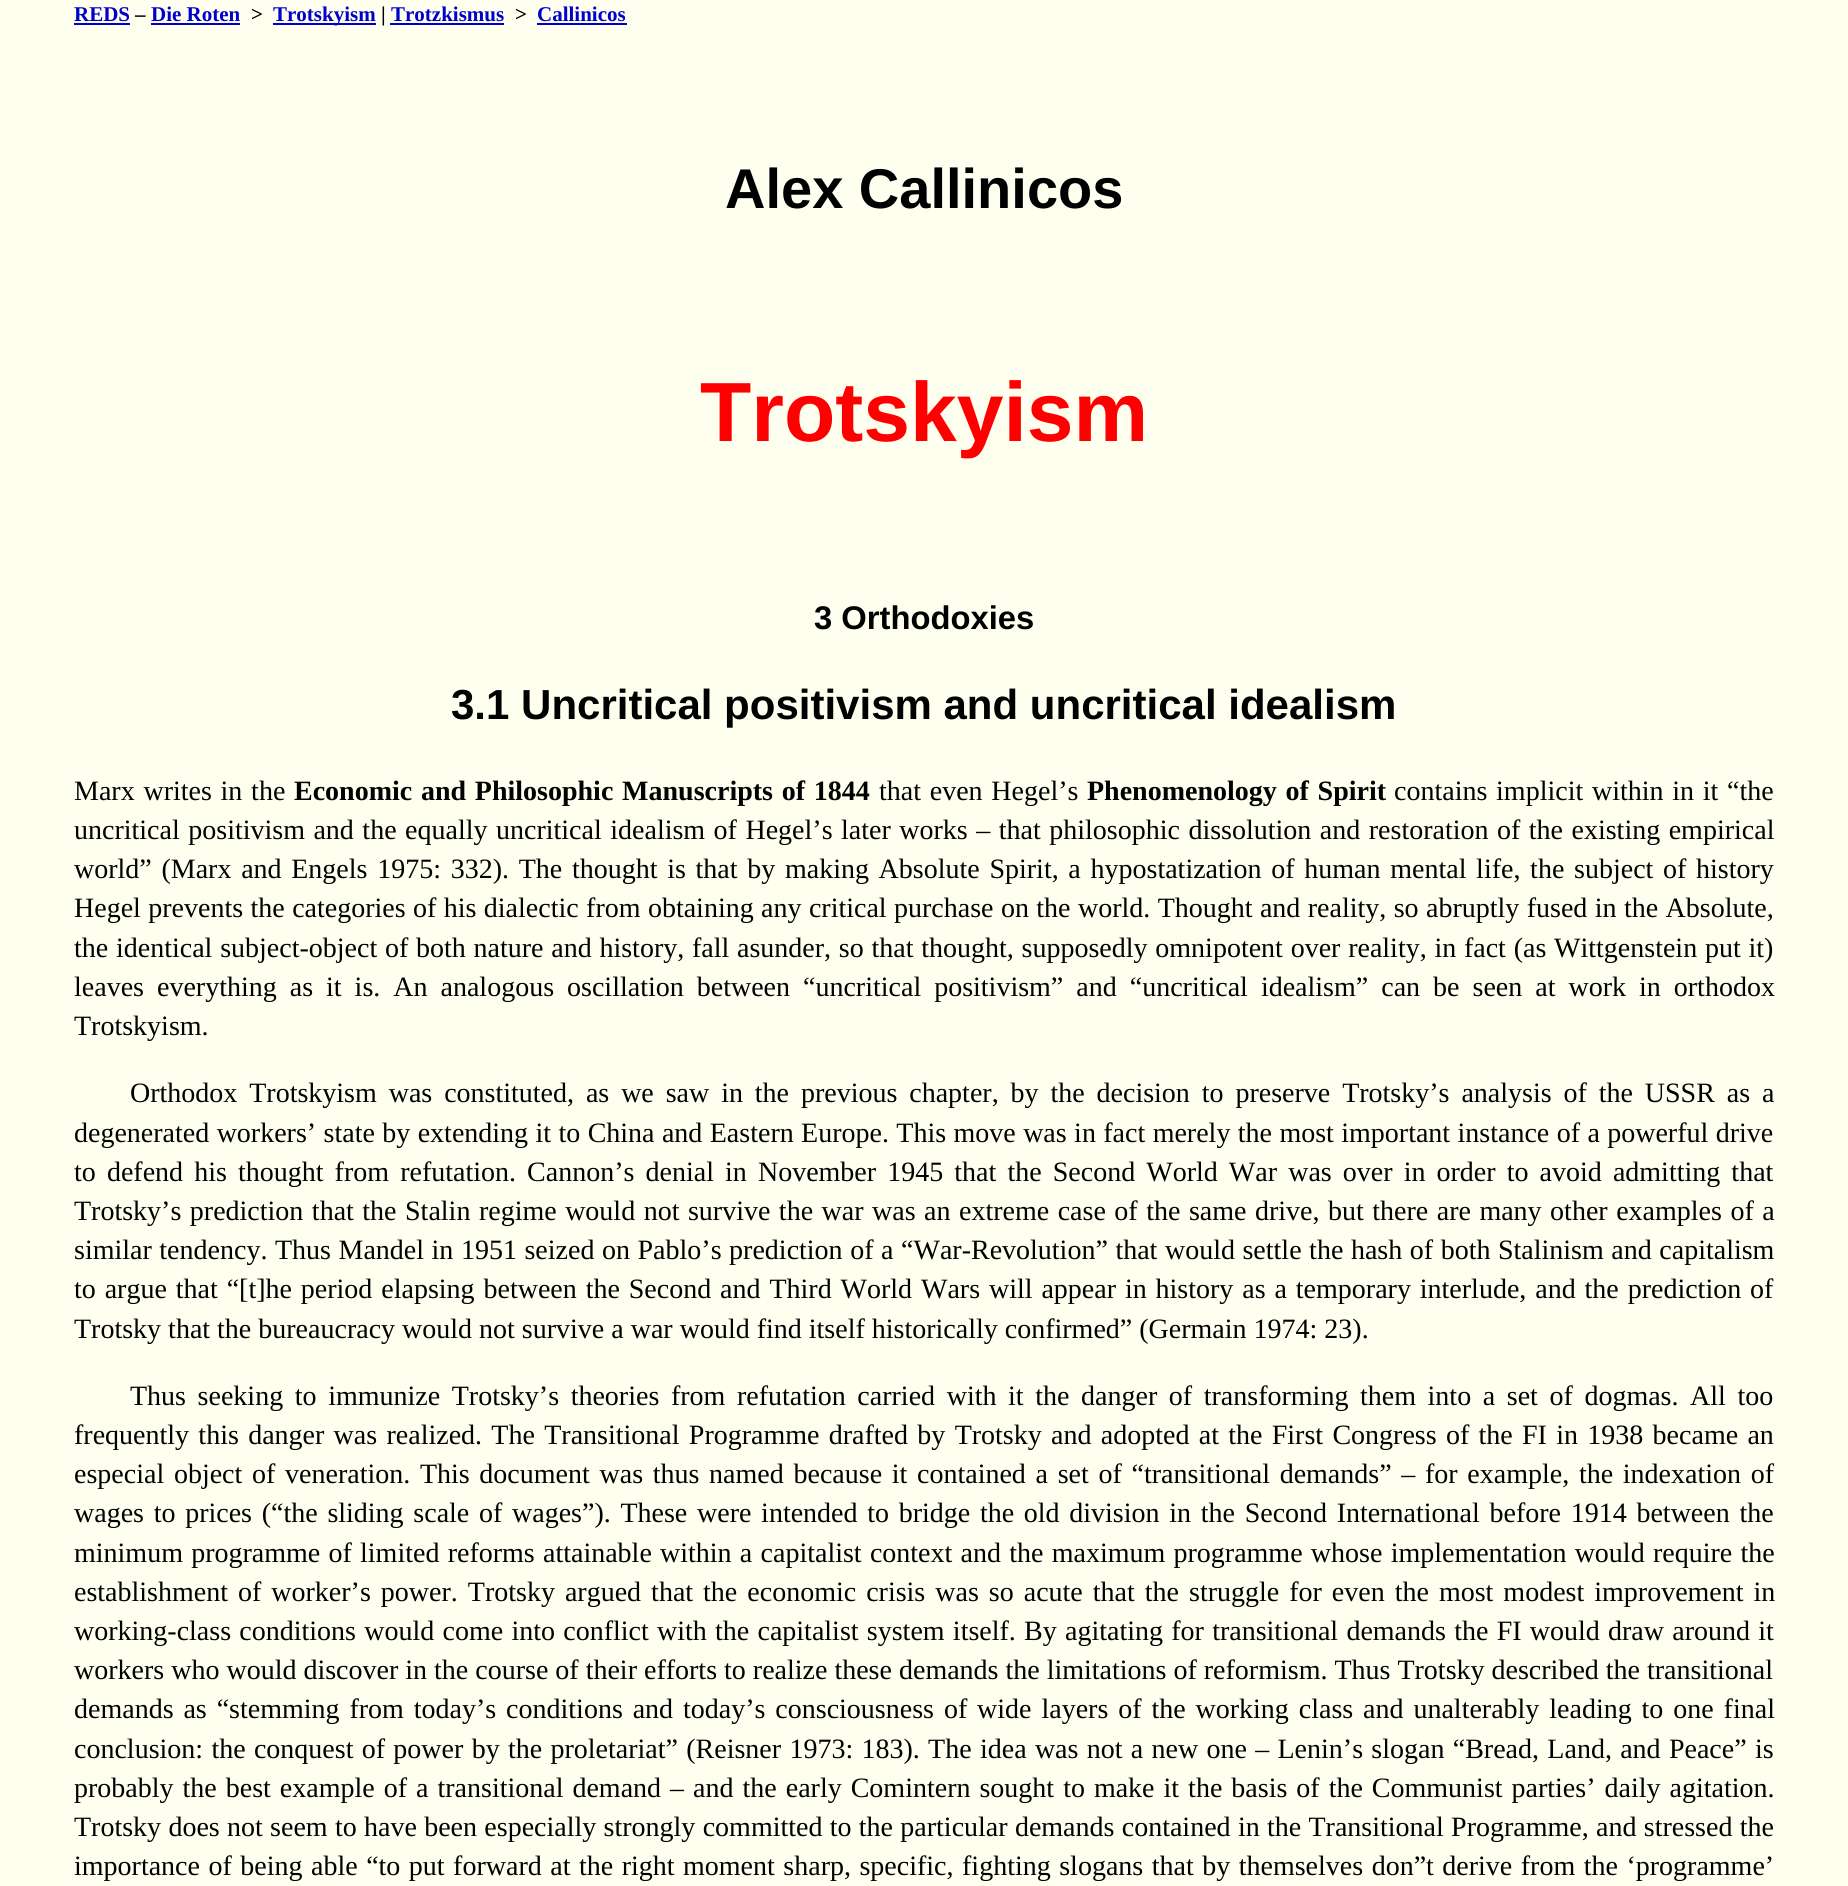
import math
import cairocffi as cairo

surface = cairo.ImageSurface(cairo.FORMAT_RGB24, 1848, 1886)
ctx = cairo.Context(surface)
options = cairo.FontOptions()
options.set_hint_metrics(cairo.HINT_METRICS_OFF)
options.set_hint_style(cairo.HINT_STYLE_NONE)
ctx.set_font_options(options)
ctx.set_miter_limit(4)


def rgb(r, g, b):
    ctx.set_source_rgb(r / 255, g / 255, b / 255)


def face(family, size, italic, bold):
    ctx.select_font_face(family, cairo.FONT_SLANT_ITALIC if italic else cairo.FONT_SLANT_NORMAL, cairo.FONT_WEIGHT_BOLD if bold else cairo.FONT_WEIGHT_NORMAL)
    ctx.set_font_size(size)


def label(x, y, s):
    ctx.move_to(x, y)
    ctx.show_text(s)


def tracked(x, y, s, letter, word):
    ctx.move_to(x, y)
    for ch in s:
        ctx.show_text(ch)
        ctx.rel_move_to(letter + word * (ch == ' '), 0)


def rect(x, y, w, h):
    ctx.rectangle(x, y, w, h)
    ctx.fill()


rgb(255, 255, 240)
ctx.paint()
face('Liberation Serif', 21, 0, 1)
rgb(0, 0, 204)
label(74, 21, 'REDS')
rect(74, 23, 56, 2)
rgb(0, 0, 0)
label(135, 21, '–')
rgb(0, 0, 204)
label(151, 21, 'Die Roten')
rect(151, 23, 89, 2)
rgb(0, 0, 0)
label(251, 21, '>')
rgb(0, 0, 204)
rect(273, 23, 103, 2)
label(273, 21, 'Trotskyism')
rgb(0, 0, 0)
label(381, 21, '|')
rgb(0, 0, 204)
label(391, 21, 'Trotzkismus')
rect(390, 23, 114, 2)
rgb(0, 0, 0)
label(515, 21, '>')
rgb(0, 0, 204)
label(537, 21, 'Callinicos')
rect(537, 23, 90, 2)
face('Liberation Sans', 56, 0, 1)
rgb(0, 0, 0)
label(725, 208, 'Alex Callinicos')
face('Liberation Sans', 84, 0, 1)
rgb(255, 0, 0)
label(700, 441, 'Trotskyism')
face('Liberation Sans', 32.75, 0, 1)
rgb(0, 0, 0)
label(814, 629, '3 Orthodoxies')
face('Liberation Sans', 42, 0, 1)
label(451, 719, '3.1 Uncritical positivism and uncritical idealism')
face('Liberation Serif', 28, 0, 0)
tracked(74, 800, 'Marx writes in the', 0, 1.75)
face('Liberation Serif', 28, 0, 1)
tracked(294, 800, 'Economic and Philosophic Manuscripts of 1844', 0, 1.75)
face('Liberation Serif', 28, 0, 0)
tracked(879, 800, 'that even Hegel’s', 0, 1.75)
face('Liberation Serif', 28, 0, 1)
tracked(1087, 800, 'Phenomenology of Spirit', 0, 1.75)
face('Liberation Serif', 28, 0, 0)
tracked(1394, 800, 'contains implicit within in it “the', 0, 1.75)
tracked(74, 839, 'uncritical positivism and the equally uncritical idealism of Hegel’s later works – that philosophic dissolution and restoration of the existing empirical', 0, 1.5)
tracked(74, 878, 'world” (Marx and Engels 1975: 332). The thought is that by making Absolute Spirit, a hypostatization of human mental life, the subject of history', 0, 2.7)
tracked(74, 917, 'Hegel prevents the categories of his dialectic from obtaining any critical purchase on the world. Thought and reality, so abruptly fused in the Absolute,', 0, 0.4)
tracked(74, 957, 'the identical subject-object of both nature and history, fall asunder, so that thought, supposedly omnipotent over reality, in fact (as Wittgenstein put it)', 0, 0.75)
tracked(74, 996, 'leaves everything as it is. An analogous oscillation between “uncritical positivism” and “uncritical idealism” can be seen at work in orthodox', 0, 6)
label(74, 1035, 'Trotskyism.')
tracked(130, 1102, 'Orthodox Trotskyism was constituted, as we saw in the previous chapter, by the decision to preserve Trotsky’s analysis of the USSR as a', 0, 4.9)
tracked(74, 1142, 'degenerated workers’ state by extending it to China and Eastern Europe. This move was in fact merely the most important instance of a powerful drive', 0, 0.4)
tracked(74, 1181, 'to defend his thought from refutation. Cannon’s denial in November 1945 that the Second World War was over in order to avoid admitting that', 0, 4.1)
tracked(74, 1220, 'Trotsky’s prediction that the Stalin regime would not survive the war was an extreme case of the same drive, but there are many other examples of a', 0, 1.5)
tracked(74, 1259, 'similar tendency. Thus Mandel in 1951 seized on Pablo’s prediction of a “War-Revolution” that would settle the hash of both Stalinism and capitalism', 0, 0.55)
tracked(74, 1298, 'to argue that “[t]he period elapsing between the Second and Third World Wars will appear in history as a temporary interlude, and the prediction of', 0, 1.9)
label(74, 1338, 'Trotsky that the bureaucracy would not survive a war would find itself historically confirmed” (Germain 1974: 23).')
tracked(130, 1405, 'Thus seeking to immunize Trotsky’s theories from refutation carried with it the danger of transforming them into a set of dogmas. All too', 0, 4.6)
tracked(74, 1444, 'frequently this danger was realized. The Transitional Programme drafted by Trotsky and adopted at the First Congress of the FI in 1938 became an', 0, 2.3)
tracked(74, 1483, 'especial object of veneration. This document was thus named because it contained a set of “transitional demands” – for example, the indexation of', 0, 2.7)
tracked(74, 1522, 'wages to prices (“the sliding scale of wages”). These were intended to bridge the old division in the Second International before 1914 between the', 0, 2.7)
tracked(74, 1562, 'minimum programme of limited reforms attainable within a capitalist context and the maximum programme whose implementation would require the', 0, 1.25)
tracked(74, 1601, 'establishment of worker’s power. Trotsky argued that the economic crisis was so acute that the struggle for even the most modest improvement in', 0, 3)
tracked(74, 1640, 'working-class conditions would come into conflict with the capitalist system itself. By agitating for transitional demands the FI would draw around it', 0, 1.25)
label(74, 1679, 'workers who would discover in the course of their efforts to realize these demands the limitations of reformism. Thus Trotsky described the transitional')
tracked(74, 1718, 'demands as “stemming from today’s conditions and today’s consciousness of wide layers of the working class and unalterably leading to one final', 0, 2.9)
tracked(74, 1758, 'conclusion: the conquest of power by the proletariat” (Reisner 1973: 183). The idea was not a new one – Lenin’s slogan “Bread, Land, and Peace” is', 0, 1.3)
tracked(74, 1797, 'probably the best example of a transitional demand – and the early Comintern sought to make it the basis of the Communist parties’ daily agitation.', 0, 2)
tracked(74, 1836, 'Trotsky does not seem to have been especially strongly committed to the particular demands contained in the Transitional Programme, and stressed the', 0, 0.3)
tracked(74, 1875, 'importance of being able “to put forward at the right moment sharp, specific, fighting slogans that by themselves don”t derive from the ‘programme’', 0, 1.5)
surface.write_to_png('render.png')
